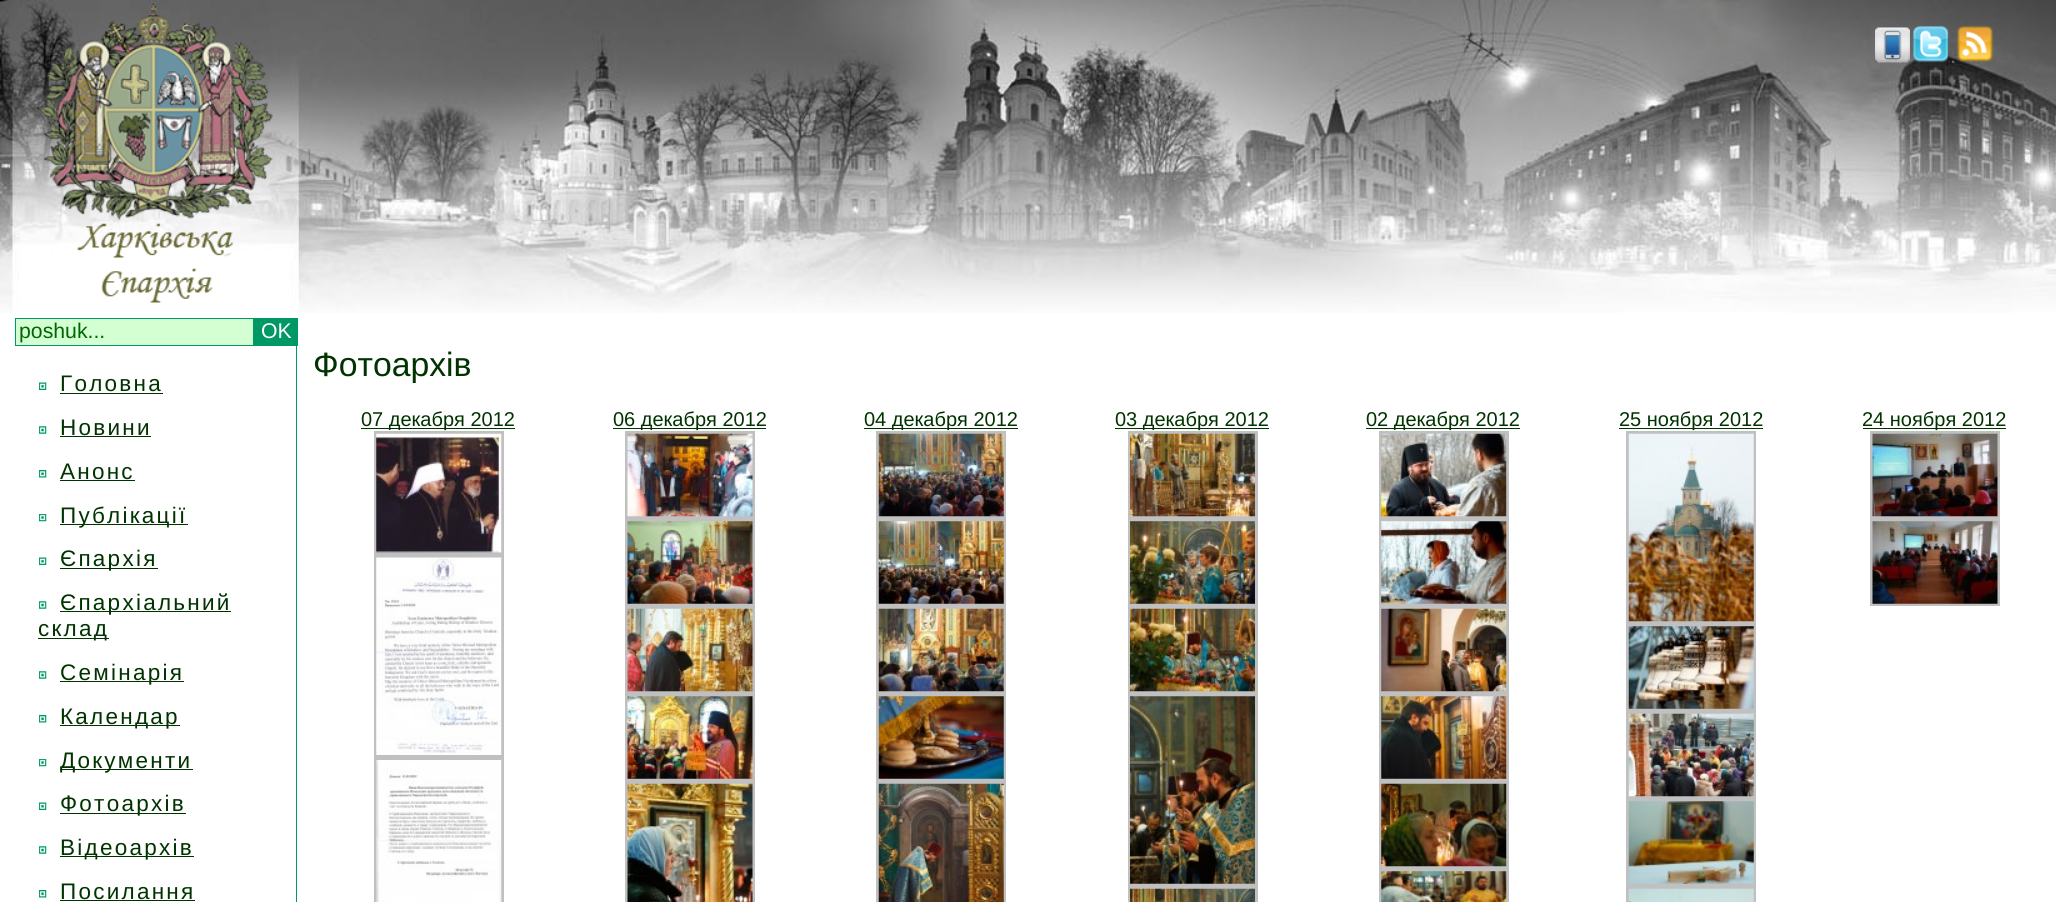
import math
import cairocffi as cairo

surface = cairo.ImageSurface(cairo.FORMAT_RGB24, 2056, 902)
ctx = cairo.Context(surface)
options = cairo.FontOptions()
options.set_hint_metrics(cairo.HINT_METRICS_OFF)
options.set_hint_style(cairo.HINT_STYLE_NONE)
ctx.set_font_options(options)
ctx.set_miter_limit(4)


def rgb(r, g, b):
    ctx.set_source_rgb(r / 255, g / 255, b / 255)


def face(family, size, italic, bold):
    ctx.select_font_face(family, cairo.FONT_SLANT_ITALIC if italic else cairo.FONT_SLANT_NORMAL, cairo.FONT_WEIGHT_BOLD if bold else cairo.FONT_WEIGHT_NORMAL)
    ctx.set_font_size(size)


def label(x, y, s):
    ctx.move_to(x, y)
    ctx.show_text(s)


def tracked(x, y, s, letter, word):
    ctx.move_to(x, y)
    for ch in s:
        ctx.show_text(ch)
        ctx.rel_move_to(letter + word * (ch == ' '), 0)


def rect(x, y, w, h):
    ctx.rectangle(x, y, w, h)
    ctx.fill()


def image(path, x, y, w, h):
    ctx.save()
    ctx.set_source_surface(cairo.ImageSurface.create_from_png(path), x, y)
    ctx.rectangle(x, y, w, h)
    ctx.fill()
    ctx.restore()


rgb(255, 255, 255)
ctx.paint()
image('image0.png', 0, 0, 2056, 313)
image('image1.png', 1875, 27, 35, 36)
image('image2.png', 1912, 26, 37, 37)
face('Liberation Sans', 22.5, 0, 0)
rgb(102, 102, 102)
label(1950, 63, '.')
image('image3.png', 1956, 25, 38, 38)
image('image4.png', 37, 3, 236, 300)
rgb(211, 255, 210)
ctx.rectangle(15.5, 318.5, 238, 27)
ctx.fill_preserve()
rgb(0, 153, 102)
ctx.set_line_width(1)
ctx.stroke()
face('Liberation Sans', 21.25, 0, 0)
rgb(0, 102, 0)
label(19, 338, 'poshuk...')
rgb(0, 153, 102)
rect(254, 318, 44, 28)
rgb(255, 255, 255)
label(261, 338, 'OK')
rgb(0, 153, 102)
rect(296, 346, 1, 556)
image('image5.png', 39, 382, 8, 8)
face('Liberation Sans', 22.5, 0, 0)
rgb(0, 51, 0)
tracked(60, 391, 'Головна', 2.25, 0)
rect(60, 393, 103, 1)
image('image6.png', 39, 426, 8, 8)
tracked(60, 435, 'Новини', 2.25, 0)
rect(60, 436, 91, 1)
image('image7.png', 39, 470, 8, 8)
tracked(60, 479, 'Анонс', 2.25, 0)
rect(60, 480, 75, 1)
image('image8.png', 39, 514, 8, 8)
rect(60, 524, 128, 1)
tracked(60, 523, 'Публікації', 2.25, 0)
image('image5.png', 39, 557, 8, 8)
rect(60, 568, 98, 1)
tracked(60, 566, 'Єпархія', 2.25, 0)
image('image6.png', 39, 601, 8, 8)
rect(60, 611, 171, 1)
tracked(60, 610, 'Єпархіальний', 2.25, 0)
rect(38, 638, 71, 1)
tracked(38, 636, 'склад', 2.25, 0)
image('image6.png', 39, 671, 8, 8)
rect(60, 681, 124, 1)
tracked(60, 680, 'Семінарія', 2.25, 0)
image('image7.png', 39, 715, 8, 8)
rect(60, 725, 120, 1)
tracked(60, 724, 'Календар', 2.25, 0)
image('image8.png', 39, 759, 8, 8)
rect(60, 769, 133, 1)
tracked(60, 768, 'Документи', 2.25, 0)
image('image5.png', 39, 802, 8, 8)
rect(60, 813, 126, 1)
tracked(60, 811, 'Фотоархів', 2.25, 0)
image('image6.png', 39, 846, 8, 8)
rect(60, 856, 134, 1)
tracked(60, 855, 'Відеоархів', 2.25, 0)
image('image7.png', 39, 890, 8, 8)
tracked(60, 899, 'Посилання', 2.25, 0)
rect(60, 900, 135, 1)
face('Liberation Sans', 33.75, 0, 0)
label(313, 376, 'Фотоархів')
rect(361, 428, 154, 1)
face('Liberation Sans', 20, 0, 0)
label(361, 426, '07 декабря 2012')
rect(613, 428, 153, 1)
label(613, 426, '06 декабря 2012')
rect(864, 428, 154, 1)
label(864, 426, '04 декабря 2012')
rect(1115, 428, 154, 1)
label(1115, 426, '03 декабря 2012')
rect(1366, 428, 154, 1)
label(1366, 426, '02 декабря 2012')
rect(1619, 428, 144, 1)
label(1619, 426, '25 ноября 2012')
rect(1863, 428, 143, 1)
label(1862, 426, '24 ноября 2012')
ctx.rectangle(375.5, 432.5, 127, 121)
rgb(192, 192, 192)
ctx.set_line_width(3)
ctx.stroke()
image('image9.png', 376, 433, 126, 120)
ctx.rectangle(375.5, 556.5, 127, 200)
ctx.stroke()
image('image10.png', 376, 557, 126, 198)
ctx.rectangle(375.5, 759.5, 127, 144)
ctx.stroke()
image('image11.png', 376, 760, 126, 142)
ctx.rectangle(626.5, 432.5, 127, 85)
ctx.stroke()
image('image12.png', 627, 433, 126, 84)
ctx.rectangle(626.5, 520.5, 127, 84)
ctx.stroke()
image('image13.png', 627, 521, 126, 83)
ctx.rectangle(626.5, 607.5, 127, 85)
ctx.stroke()
image('image14.png', 627, 608, 126, 84)
ctx.rectangle(626.5, 695.5, 127, 84)
ctx.stroke()
image('image15.png', 627, 696, 126, 83)
ctx.rectangle(626.5, 782.5, 127, 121)
ctx.stroke()
image('image16.png', 627, 783, 126, 119)
ctx.rectangle(877.5, 432.5, 127, 85)
ctx.stroke()
image('image17.png', 878, 433, 126, 84)
ctx.rectangle(877.5, 520.5, 127, 84)
ctx.stroke()
image('image18.png', 878, 521, 126, 83)
ctx.rectangle(877.5, 607.5, 127, 85)
ctx.stroke()
image('image19.png', 878, 608, 126, 84)
ctx.rectangle(877.5, 695.5, 127, 84)
ctx.stroke()
image('image20.png', 878, 696, 126, 83)
ctx.rectangle(877.5, 782.5, 127, 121)
ctx.stroke()
image('image21.png', 878, 783, 126, 119)
ctx.rectangle(1129.5, 432.5, 127, 85)
ctx.stroke()
image('image22.png', 1130, 433, 125, 84)
ctx.rectangle(1129.5, 520.5, 127, 84)
ctx.stroke()
image('image23.png', 1130, 521, 125, 83)
ctx.rectangle(1129.5, 607.5, 127, 85)
ctx.stroke()
image('image24.png', 1130, 608, 125, 84)
ctx.rectangle(1129.5, 695.5, 127, 189)
ctx.stroke()
image('image25.png', 1130, 696, 125, 188)
ctx.rectangle(1129.5, 887.5, 127, 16)
ctx.stroke()
image('image26.png', 1130, 888, 125, 14)
ctx.rectangle(1380.5, 432.5, 127, 85)
ctx.stroke()
image('image27.png', 1381, 433, 126, 84)
ctx.rectangle(1380.5, 520.5, 127, 84)
ctx.stroke()
image('image28.png', 1381, 521, 126, 83)
ctx.rectangle(1380.5, 607.5, 127, 85)
ctx.stroke()
image('image29.png', 1381, 608, 126, 84)
ctx.rectangle(1380.5, 695.5, 127, 84)
ctx.stroke()
image('image30.png', 1381, 696, 126, 83)
ctx.rectangle(1380.5, 782.5, 127, 85)
ctx.stroke()
image('image31.png', 1381, 783, 126, 84)
ctx.rectangle(1380.5, 870.5, 127, 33)
ctx.stroke()
image('image32.png', 1381, 871, 126, 31)
ctx.rectangle(1627.5, 432.5, 127, 190)
ctx.stroke()
image('image33.png', 1628, 433, 126, 189)
ctx.rectangle(1627.5, 625.5, 127, 84)
ctx.stroke()
image('image34.png', 1628, 626, 126, 83)
ctx.rectangle(1627.5, 712.5, 127, 85)
ctx.stroke()
image('image35.png', 1628, 713, 126, 84)
ctx.rectangle(1627.5, 800.5, 127, 84)
ctx.stroke()
image('image36.png', 1628, 801, 126, 83)
ctx.rectangle(1627.5, 887.5, 127, 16)
ctx.stroke()
image('image37.png', 1628, 888, 126, 14)
ctx.rectangle(1871.5, 432.5, 127, 85)
ctx.stroke()
image('image38.png', 1872, 433, 126, 84)
ctx.rectangle(1871.5, 520.5, 127, 84)
ctx.stroke()
image('image39.png', 1872, 521, 126, 83)
surface.write_to_png('render.png')
